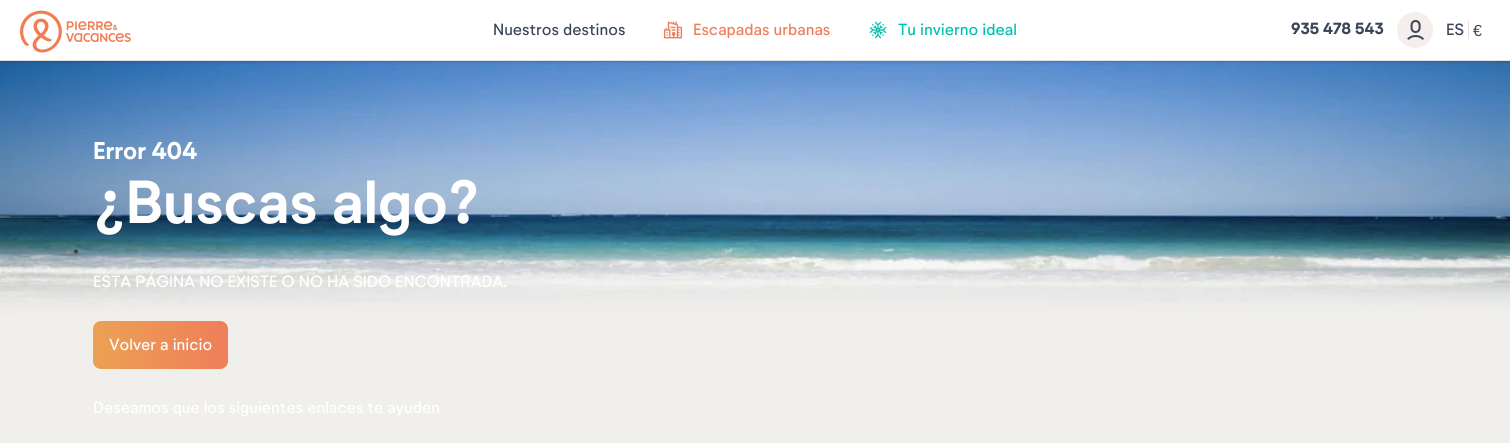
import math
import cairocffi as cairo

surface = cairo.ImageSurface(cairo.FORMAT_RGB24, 1510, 443)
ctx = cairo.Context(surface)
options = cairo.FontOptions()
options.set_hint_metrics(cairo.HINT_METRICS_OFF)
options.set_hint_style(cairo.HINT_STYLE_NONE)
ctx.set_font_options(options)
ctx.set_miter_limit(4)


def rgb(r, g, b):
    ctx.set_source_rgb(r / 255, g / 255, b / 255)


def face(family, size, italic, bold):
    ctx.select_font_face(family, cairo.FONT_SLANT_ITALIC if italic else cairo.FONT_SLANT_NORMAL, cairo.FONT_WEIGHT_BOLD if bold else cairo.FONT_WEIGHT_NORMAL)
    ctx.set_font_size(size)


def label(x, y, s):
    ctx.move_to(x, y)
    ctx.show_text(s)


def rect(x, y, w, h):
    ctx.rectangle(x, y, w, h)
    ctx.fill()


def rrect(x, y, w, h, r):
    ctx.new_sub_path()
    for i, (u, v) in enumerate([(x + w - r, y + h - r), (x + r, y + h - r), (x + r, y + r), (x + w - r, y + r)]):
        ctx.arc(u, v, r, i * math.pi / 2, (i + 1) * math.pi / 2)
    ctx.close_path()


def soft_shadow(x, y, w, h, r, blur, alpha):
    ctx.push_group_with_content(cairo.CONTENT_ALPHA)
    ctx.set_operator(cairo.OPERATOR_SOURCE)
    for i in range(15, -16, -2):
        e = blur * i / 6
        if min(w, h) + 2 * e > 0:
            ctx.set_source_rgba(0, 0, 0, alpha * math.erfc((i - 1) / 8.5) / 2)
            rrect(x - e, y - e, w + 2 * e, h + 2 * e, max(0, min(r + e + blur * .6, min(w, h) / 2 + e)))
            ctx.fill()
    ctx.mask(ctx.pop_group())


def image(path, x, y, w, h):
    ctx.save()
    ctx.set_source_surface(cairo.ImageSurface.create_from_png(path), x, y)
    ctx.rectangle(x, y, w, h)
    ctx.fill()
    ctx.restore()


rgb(255, 255, 255)
ctx.paint()
image('image4.png', 0, 61, 1510, 382)
rgb(0, 0, 0)
soft_shadow(0, 0, 1510, 61, 0, 2, 0.25)
rgb(255, 255, 255)
rect(0, 0, 1510, 60)
rgb(229, 224, 222)
rect(0, 60, 1510, 1)
image('image0.png', 20, 10, 111, 43)
face('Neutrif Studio', 16, 0, 0)
rgb(59, 69, 89)
label(493, 35, 'Nuestros destinos')
image('image1.png', 663, 21, 20, 18)
rgb(240, 125, 90)
label(693, 35, 'Escapadas urbanas')
image('image2.png', 869, 21, 18, 18)
rgb(0, 191, 179)
label(898, 35, 'Tu invierno ideal')
face('Neutrif Studio', 16, 0, 1)
rgb(59, 69, 89)
label(1291, 34, '935 478 543')
rgb(244, 239, 236)
ctx.new_path()
ctx.arc(1415, 30, 18, 0, 2 * math.pi)
ctx.fill()
image('image3.png', 1407, 20, 18, 20)
rgb(229, 224, 222)
rect(1468, 21, 1, 18)
face('Neutrif Studio', 16, 0, 0)
rgb(59, 69, 89)
label(1446, 35, 'ES')
face('Liberation Sans', 16, 0, 0)
label(1473, 36, '€')
face('Neutrif Studio', 24, 0, 1)
rgb(255, 255, 255)
label(93, 159, 'Error 404')
face('Neutrif Studio SemiBold', 60, 0, 0)
label(93, 223, '¿Buscas algo?')
face('Neutrif Studio', 16, 0, 0)
label(93, 287, 'ESTA PÁGINA NO EXISTE O NO HA SIDO ENCONTRADA.')
gradient = cairo.LinearGradient(93, 345, 363, 345)
gradient.add_color_stop_rgba(0, 0.925, 0.631, 0.329, 1)
gradient.add_color_stop_rgba(0.51, 0.941, 0.49, 0.353, 1)
gradient.add_color_stop_rgba(1, 0.925, 0.631, 0.329, 1)
ctx.set_source(gradient)
rrect(93, 321, 135, 48, 8)
ctx.fill()
rgb(255, 255, 255)
label(109, 350, 'Volver a inicio')
label(93, 413, 'Deseamos que los siguientes enlaces te ayuden')
surface.write_to_png('render.png')
